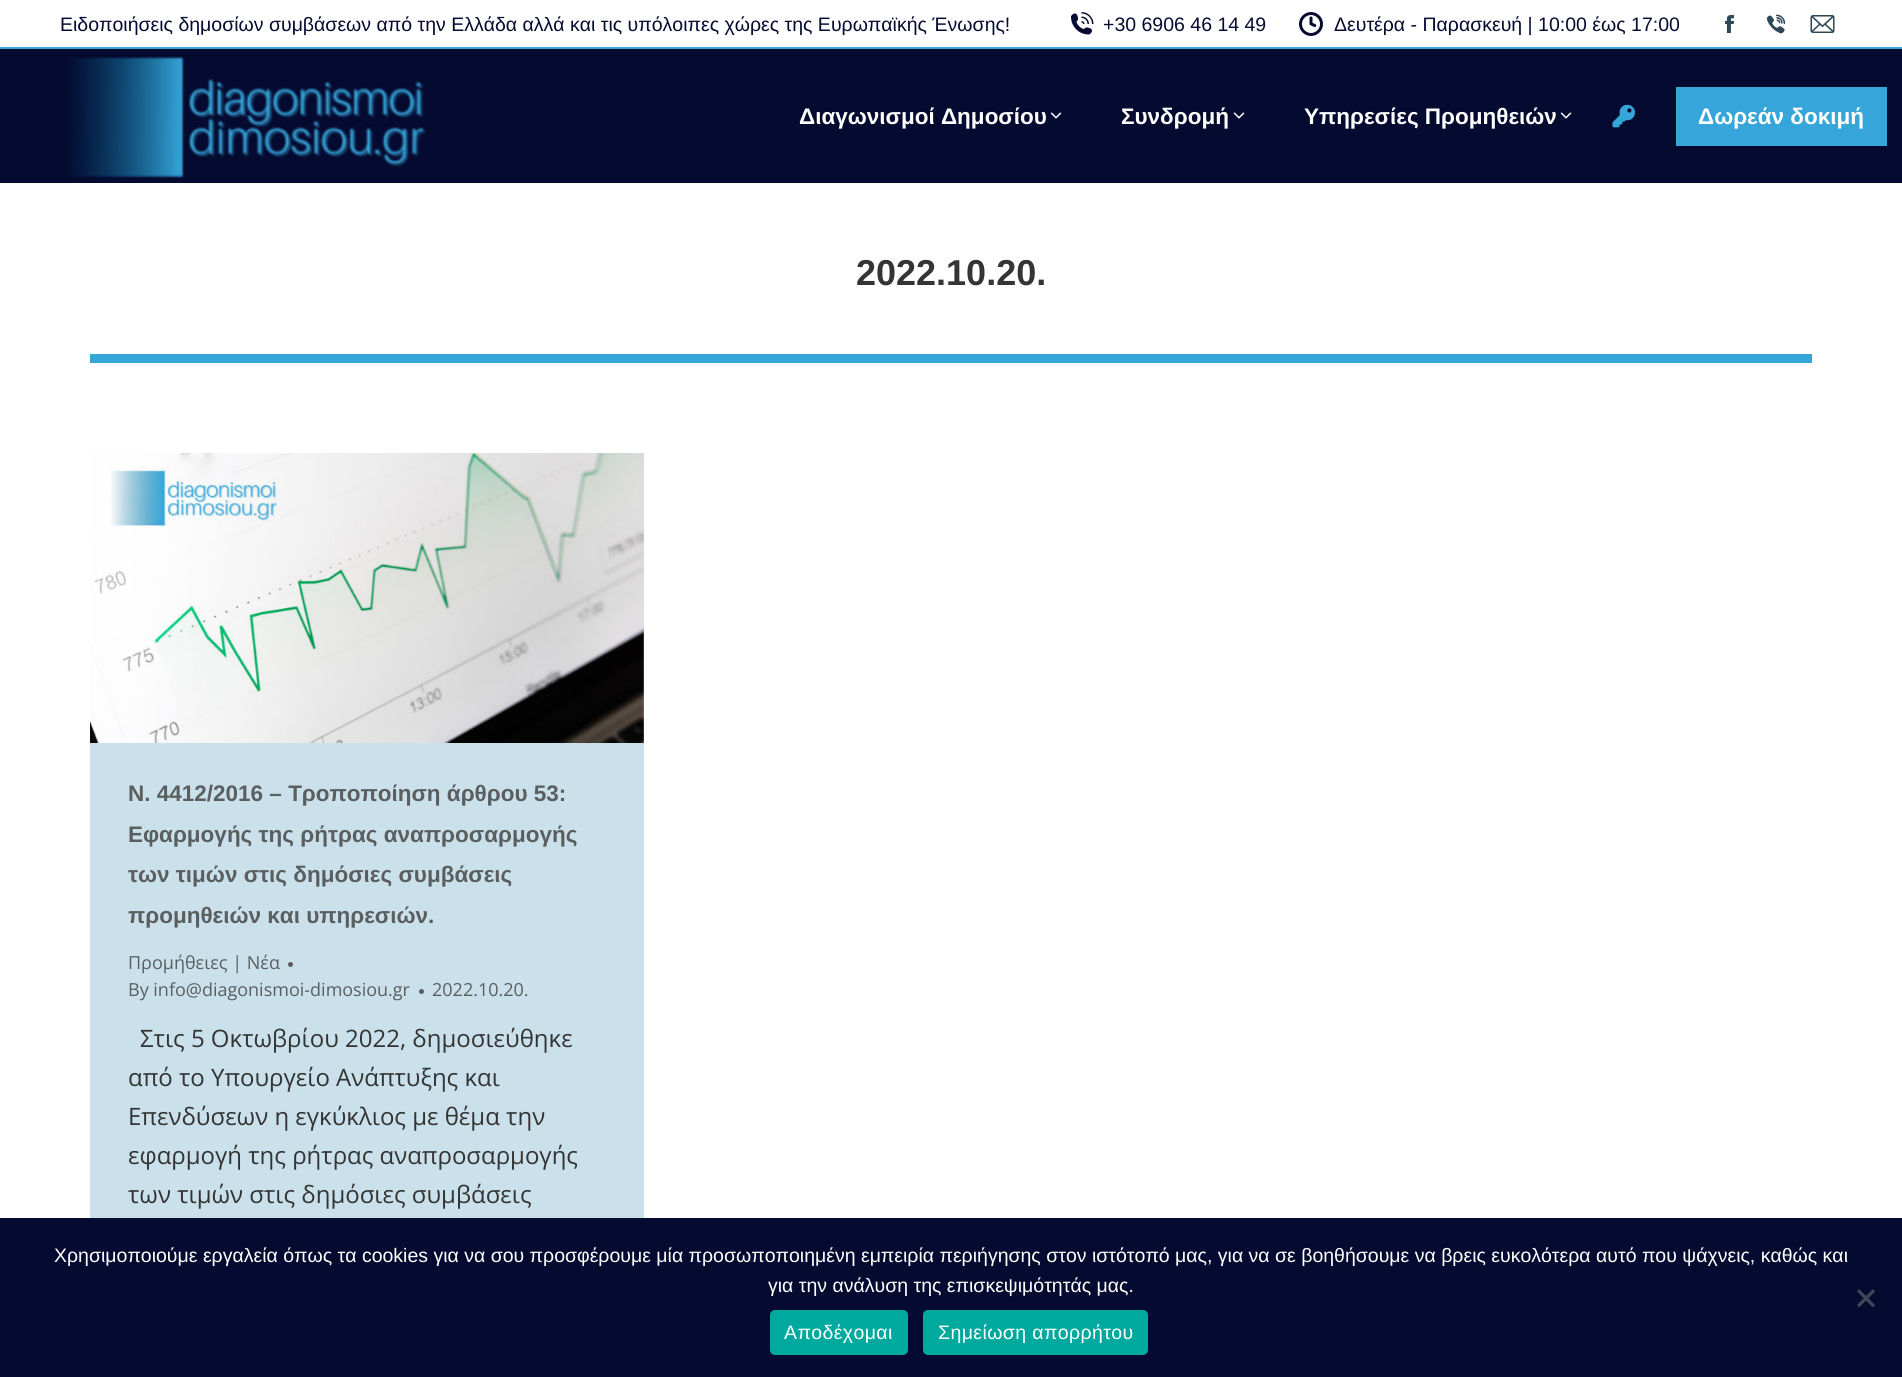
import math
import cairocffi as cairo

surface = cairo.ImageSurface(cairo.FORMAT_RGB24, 1902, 1377)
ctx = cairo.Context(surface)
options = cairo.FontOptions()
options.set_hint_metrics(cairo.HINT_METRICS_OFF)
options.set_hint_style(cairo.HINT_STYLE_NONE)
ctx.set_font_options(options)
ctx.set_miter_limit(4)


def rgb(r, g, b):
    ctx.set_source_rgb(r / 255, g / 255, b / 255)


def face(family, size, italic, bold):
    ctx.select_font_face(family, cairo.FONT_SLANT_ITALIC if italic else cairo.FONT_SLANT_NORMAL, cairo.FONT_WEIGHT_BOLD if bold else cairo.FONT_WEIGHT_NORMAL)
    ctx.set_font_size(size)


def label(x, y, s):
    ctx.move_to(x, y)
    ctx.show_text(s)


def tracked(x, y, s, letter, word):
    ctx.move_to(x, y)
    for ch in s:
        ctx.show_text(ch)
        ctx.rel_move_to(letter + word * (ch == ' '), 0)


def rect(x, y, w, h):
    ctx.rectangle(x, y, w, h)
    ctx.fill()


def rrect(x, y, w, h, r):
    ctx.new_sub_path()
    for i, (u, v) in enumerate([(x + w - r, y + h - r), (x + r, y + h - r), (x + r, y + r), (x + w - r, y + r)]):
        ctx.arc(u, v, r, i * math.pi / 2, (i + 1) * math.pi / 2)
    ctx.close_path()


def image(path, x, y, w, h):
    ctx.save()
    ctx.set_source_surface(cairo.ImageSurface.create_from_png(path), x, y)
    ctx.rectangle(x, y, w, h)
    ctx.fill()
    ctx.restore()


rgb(255, 255, 255)
ctx.paint()
rgb(5, 10, 48)
rect(0, 49, 1902, 134)
face('Liberation Sans', 19.5, 0, 0)
label(60, 31, 'Ειδοποιήσεις δημοσίων συμβάσεων από την Ελλάδα αλλά και τις υπόλοιπες χώρες της Ευρωπαϊκής Ένωσης!')
image('image0.png', 1071, 12, 23, 23)
label(1103, 31, '+30 6906 46 14 49')
image('image1.png', 1299, 12, 24, 24)
label(1334, 31, 'Δευτέρα - Παρασκευή | 10:00 έως 17:00')
image('image2.png', 1724, 15, 11, 18)
image('image3.png', 1766, 14, 20, 20)
image('image4.png', 1810, 15, 25, 18)
rgb(54, 166, 218)
rect(0, 47, 1902, 2)
image('image5.png', 68, 56, 358, 122)
face('Liberation Sans', 22.5, 0, 1)
rgb(255, 255, 255)
label(799, 124, 'Διαγωνισμοί Δημοσίου')
image('image6.png', 1050, 112, 12, 7)
label(1121, 124, 'Συνδρομή')
image('image6.png', 1233, 112, 12, 7)
label(1304, 124, 'Υπηρεσίες Προμηθειών')
image('image6.png', 1560, 112, 12, 7)
image('image7.png', 1612, 104, 23, 24)
rgb(54, 166, 218)
rect(1676, 87, 211, 59)
rgb(255, 255, 255)
label(1698, 124, 'Δωρεάν δοκιμή')
face('Liberation Sans', 36, 0, 1)
rgb(52, 52, 52)
label(856, 285, '2022.10.20.')
rgb(54, 166, 218)
rect(90, 354, 1722, 9)
rgb(202, 225, 235)
rect(90, 453, 554, 765)
image('image8.png', 90, 453, 554, 290)
face('Liberation Sans', 22.5, 0, 1)
rgb(91, 94, 95)
label(128, 801, 'N. 4412/2016 – Τροποποίηση άρθρου 53:')
label(128, 842, 'Eφαρμογής της ρήτρας αναπροσαρμογής')
label(128, 882, 'των τιμών στις δημόσιες συμβάσεις')
label(128, 923, 'προμηθειών και υπηρεσιών.')
face('Open Sans', 18, 0, 0)
label(128, 969, 'Προμήθειες | Νέα')
ctx.new_path()
ctx.arc(290.5, 964.5, 2.5, 0, 2 * math.pi)
ctx.fill()
label(128, 996, 'By info@diagonismoi-dimosiou.gr')
ctx.new_path()
ctx.arc(421.5, 991.5, 2.5, 0, 2 * math.pi)
ctx.fill()
label(432, 996, '2022.10.20.')
face('Open Sans', 24, 0, 0)
rgb(52, 52, 52)
label(140, 1047, 'Στις 5 Οκτωβρίου 2022, δημοσιεύθηκε')
label(128, 1086, 'από το Υπουργείο Ανάπτυξης και')
label(128, 1125, 'Επενδύσεων η εγκύκλιος με θέμα την')
label(128, 1164, 'εφαρμογή της ρήτρας αναπροσαρμογής')
label(128, 1203, 'των τιμών στις δημόσιες συμβάσεις')
rgb(5, 10, 48)
rect(0, 1218, 1902, 159)
face('Liberation Sans', 19.5, 0, 0)
rgb(255, 255, 255)
label(54, 1262, 'Χρησιμοποιούμε εργαλεία όπως τα cookies για να σου προσφέρουμε μία προσωποποιημένη εμπειρία περιήγησης στον ιστότοπό μας, για να σε βοηθήσουμε να βρεις ευκολότερα αυτό που ψάχνεις, καθώς και')
label(768, 1292, 'για την ανάλυση της επισκεψιμότητάς μας.')
rgb(67, 69, 88)
ctx.new_path()
ctx.move_to(1873, 1289)
ctx.line_to(1875, 1291.5)
ctx.line_to(1859, 1307.5)
ctx.line_to(1857, 1305)
ctx.close_path()
ctx.fill()
ctx.new_path()
ctx.move_to(1857, 1291.5)
ctx.line_to(1859, 1289)
ctx.line_to(1875, 1305)
ctx.line_to(1873, 1307.5)
ctx.close_path()
ctx.fill()
rgb(0, 169, 157)
rrect(770, 1310, 138, 45, 5)
ctx.fill()
rgb(255, 255, 255)
tracked(784, 1339, 'Αποδέχομαι', 0.4, 0)
rgb(0, 169, 157)
rrect(923, 1310, 225, 45, 5)
ctx.fill()
rgb(255, 255, 255)
tracked(938, 1339, 'Σημείωση απορρήτου', 0.4, 0)
surface.write_to_png('render.png')
